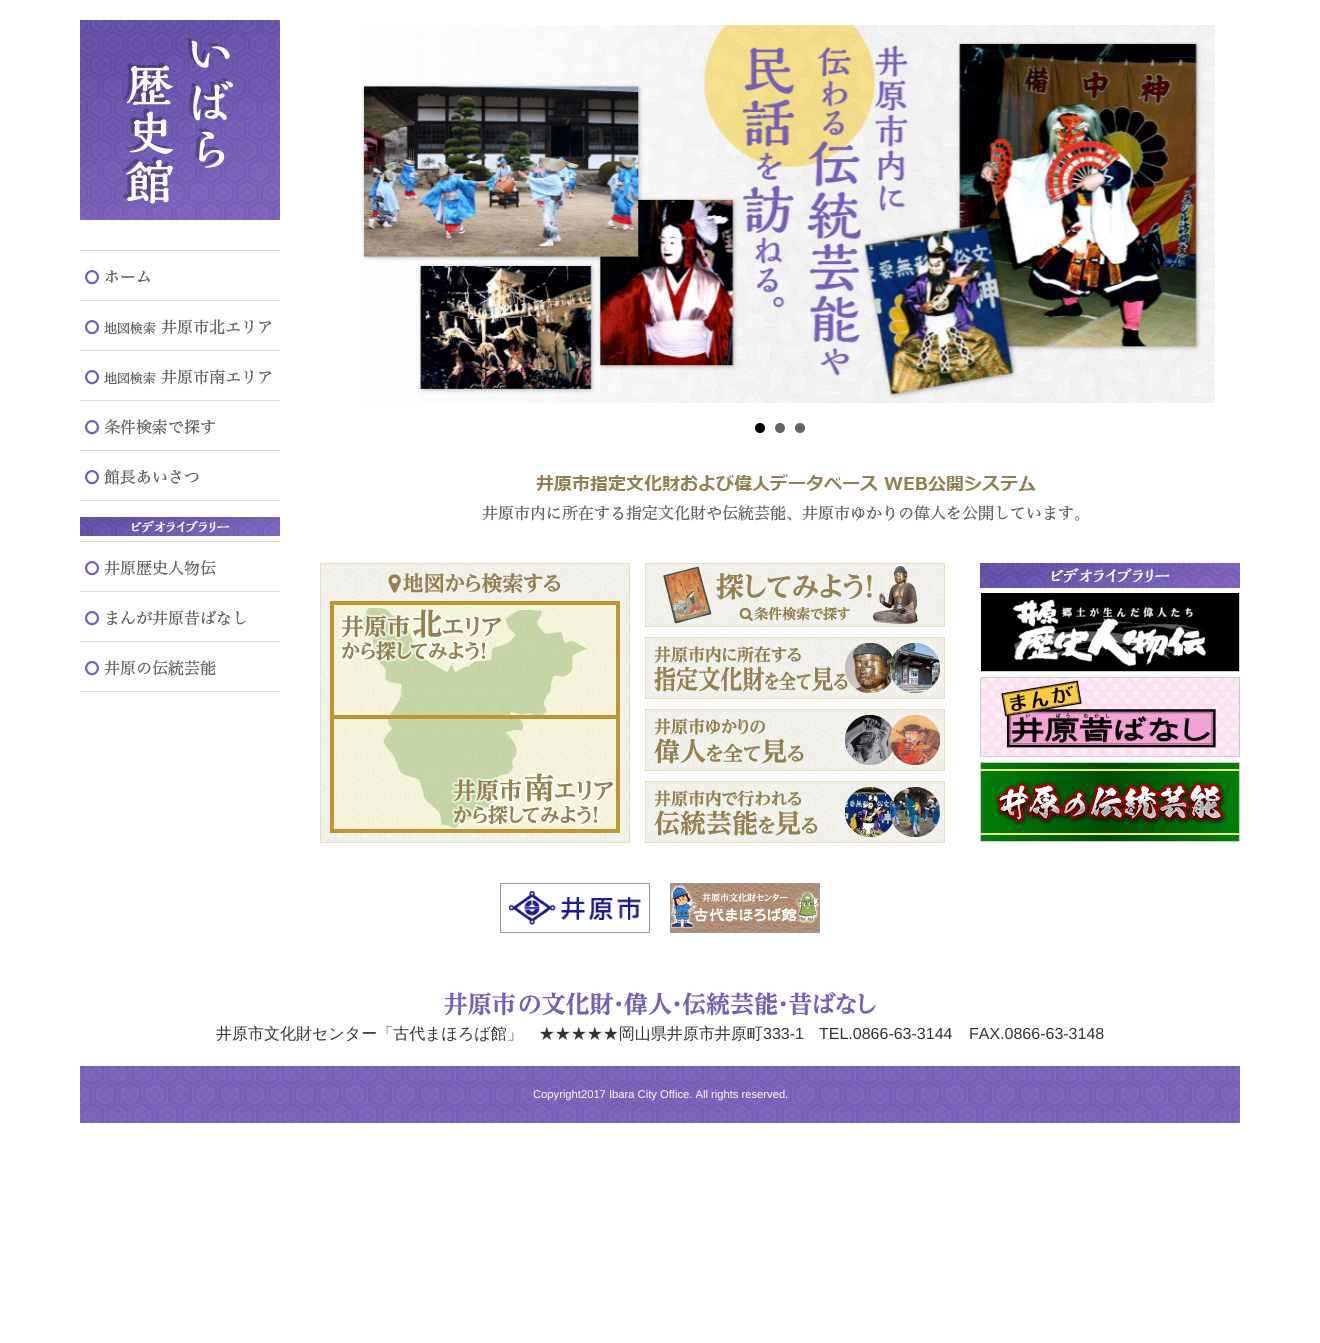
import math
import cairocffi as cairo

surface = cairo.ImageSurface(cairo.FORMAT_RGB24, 1320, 1343)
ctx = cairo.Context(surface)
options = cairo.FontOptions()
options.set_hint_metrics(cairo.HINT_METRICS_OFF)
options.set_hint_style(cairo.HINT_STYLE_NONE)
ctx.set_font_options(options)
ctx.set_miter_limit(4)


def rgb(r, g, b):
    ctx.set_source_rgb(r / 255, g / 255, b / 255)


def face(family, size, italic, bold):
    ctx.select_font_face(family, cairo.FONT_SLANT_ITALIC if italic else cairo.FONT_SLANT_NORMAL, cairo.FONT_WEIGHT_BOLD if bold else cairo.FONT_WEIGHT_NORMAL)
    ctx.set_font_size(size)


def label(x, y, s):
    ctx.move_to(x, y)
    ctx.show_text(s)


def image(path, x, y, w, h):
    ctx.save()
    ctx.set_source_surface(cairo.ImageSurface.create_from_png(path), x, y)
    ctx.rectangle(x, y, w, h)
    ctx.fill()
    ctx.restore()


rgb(255, 255, 255)
ctx.paint()
image('image0.png', 80, 20, 200, 200)
image('image1.png', 80, 250, 200, 37)
image('image2.png', 80, 300, 200, 37)
image('image3.png', 80, 350, 200, 35)
image('image4.png', 80, 400, 200, 35)
image('image5.png', 80, 450, 200, 51)
image('image6.png', 80, 517, 200, 19)
image('image7.png', 80, 541, 200, 37)
image('image8.png', 80, 591, 200, 37)
image('image9.png', 80, 641, 200, 51)
image('image10.png', 360, 25, 855, 378)
rgb(0, 0, 0)
ctx.arc(760, 428, 5, 0, 2 * math.pi)
ctx.fill()
rgb(102, 102, 102)
ctx.arc(780, 428, 5, 0, 2 * math.pi)
ctx.fill()
ctx.arc(800, 428, 5, 0, 2 * math.pi)
ctx.fill()
image('image11.png', 482, 472, 597, 49)
image('image12.png', 320, 563, 310, 154)
image('image13.png', 320, 717, 310, 126)
image('image14.png', 645, 563, 300, 64)
image('image15.png', 645, 637, 300, 62)
image('image16.png', 645, 709, 300, 62)
image('image17.png', 645, 781, 300, 62)
image('image18.png', 980, 563, 260, 25)
image('image19.png', 981, 593, 259, 85)
image('image20.png', 980, 678, 260, 85)
image('image21.png', 980, 763, 260, 79)
image('image22.png', 500, 883, 150, 50)
image('image23.png', 670, 883, 150, 50)
image('image24.png', 441, 988, 435, 32)
face('WenQuanYi Zen Hei Medium', 16, 0, 0)
rgb(51, 51, 51)
label(216, 1039, '井原市文化財センター「古代まほろば館」　★★★★★岡山県井原市井原町')
face('Liberation Sans', 16, 0, 0)
label(763, 1039, '333-1')
label(819, 1039, 'TEL.0866-63-3144')
label(969, 1039, 'FAX.0866-63-3148')
image('image25.png', 80, 1066, 1160, 57)
face('Liberation Sans', 11.2, 0, 0)
rgb(255, 255, 255)
label(533, 1098, 'Copyright2017 Ibara City Office. All rights reserved.')
surface.write_to_png('render.png')
